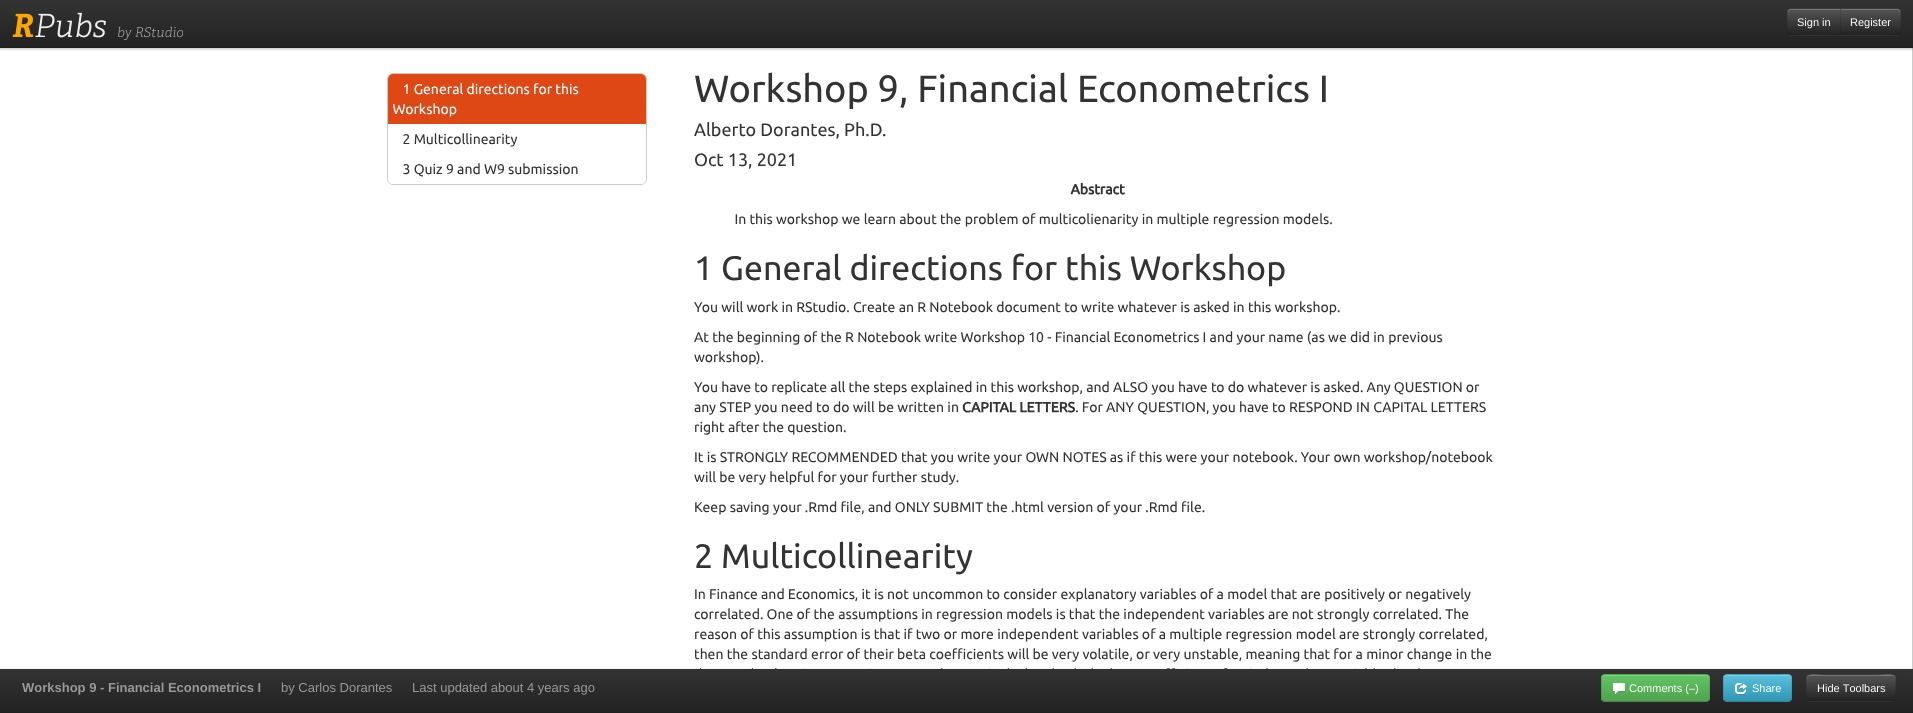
import math
import cairocffi as cairo

surface = cairo.ImageSurface(cairo.FORMAT_RGB24, 1913, 713)
ctx = cairo.Context(surface)
options = cairo.FontOptions()
options.set_hint_metrics(cairo.HINT_METRICS_OFF)
options.set_hint_style(cairo.HINT_STYLE_NONE)
ctx.set_font_options(options)
ctx.set_miter_limit(4)


def rgb(r, g, b):
    ctx.set_source_rgb(r / 255, g / 255, b / 255)


def face(family, size, italic, bold):
    ctx.select_font_face(family, cairo.FONT_SLANT_ITALIC if italic else cairo.FONT_SLANT_NORMAL, cairo.FONT_WEIGHT_BOLD if bold else cairo.FONT_WEIGHT_NORMAL)
    ctx.set_font_size(size)


def label(x, y, s):
    ctx.move_to(x, y)
    ctx.show_text(s)


def rect(x, y, w, h):
    ctx.rectangle(x, y, w, h)
    ctx.fill()


def rrect(x, y, w, h, r):
    ctx.new_sub_path()
    for i, (u, v) in enumerate([(x + w - r, y + h - r), (x + r, y + h - r), (x + r, y + r), (x + w - r, y + r)]):
        ctx.arc(u, v, r, i * math.pi / 2, (i + 1) * math.pi / 2)
    ctx.close_path()


def soft_shadow(x, y, w, h, r, blur, alpha):
    ctx.push_group_with_content(cairo.CONTENT_ALPHA)
    ctx.set_operator(cairo.OPERATOR_SOURCE)
    for i in range(15, -16, -2):
        e = blur * i / 6
        if min(w, h) + 2 * e > 0:
            ctx.set_source_rgba(0, 0, 0, alpha * math.erfc((i - 1) / 8.5) / 2)
            rrect(x - e, y - e, w + 2 * e, h + 2 * e, max(0, min(r + e + blur * .6, min(w, h) / 2 + e)))
            ctx.fill()
    ctx.mask(ctx.pop_group())


def image(path, x, y, w, h):
    ctx.save()
    ctx.set_source_surface(cairo.ImageSurface.create_from_png(path), x, y)
    ctx.rectangle(x, y, w, h)
    ctx.fill()
    ctx.restore()


rgb(255, 255, 255)
ctx.paint()
image('image0.png', 0, 48, 1912, 621)
rgb(204, 204, 204)
rect(1912, 48, 1, 625)
rgb(0, 0, 0)
soft_shadow(0, 1, 1913, 48, 0, 1.5, 0.25)
gradient = cairo.LinearGradient(957, 0, 957, 48)
gradient.add_color_stop_rgba(0, 0.2, 0.2, 0.2, 1)
gradient.add_color_stop_rgba(1, 0.133, 0.133, 0.133, 1)
ctx.set_source(gradient)
rect(0, 0, 1913, 47)
rgb(31, 31, 31)
rect(0, 47, 1913, 1)
face('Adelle', 32, 1, 1)
rgb(255, 165, 0)
label(12, 37, 'R')
face('Adelle Light', 32, 1, 0)
rgb(238, 238, 238)
label(34, 37, 'Pubs')
face('Adelle Light', 13.5, 1, 0)
rgb(153, 153, 153)
label(117, 37, 'by RStudio')
rgb(65, 65, 65)
ctx.new_path()
ctx.move_to(1791, 8)
ctx.line_to(1841, 8)
ctx.line_to(1841, 36)
ctx.line_to(1791, 36)
ctx.curve_to(1789, 36, 1787, 34, 1787, 32)
ctx.line_to(1787, 12)
ctx.curve_to(1787, 10, 1789, 8, 1791, 8)
ctx.close_path()
ctx.fill()
ctx.save()
ctx.new_path()
ctx.move_to(1791, 8)
ctx.line_to(1841, 8)
ctx.line_to(1841, 36)
ctx.line_to(1791, 36)
ctx.curve_to(1789, 36, 1787, 34, 1787, 32)
ctx.line_to(1787, 12)
ctx.curve_to(1787, 10, 1789, 8, 1791, 8)
ctx.close_path()
ctx.clip()
gradient = cairo.LinearGradient(1814, 9, 1814, 35)
gradient.add_color_stop_rgba(0, 0.333, 0.333, 0.333, 1)
gradient.add_color_stop_rgba(1, 0.133, 0.133, 0.133, 1)
ctx.set_source(gradient)
rect(1787, 9, 53, 26)
ctx.restore()
rgb(118, 118, 118)
ctx.new_path()
ctx.move_to(1791, 10)
ctx.line_to(1840, 10)
ctx.line_to(1840, 9)
ctx.line_to(1791, 9)
ctx.curve_to(1789, 9, 1788, 10, 1788, 12)
ctx.line_to(1788, 13)
ctx.curve_to(1788, 11, 1789, 10, 1791, 10)
ctx.close_path()
ctx.fill()
ctx.set_source_rgba(0, 0, 0, 0.1)
ctx.new_path()
ctx.move_to(1791, 8)
ctx.line_to(1788, 9)
ctx.line_to(1789, 10)
ctx.curve_to(1791, 8, 1834, 9, 1840, 9)
ctx.line_to(1841, 8)
ctx.close_path()
ctx.fill()
ctx.set_source_rgba(0, 0, 0, 0.25)
ctx.new_path()
ctx.move_to(1841, 36)
ctx.line_to(1840, 35)
ctx.curve_to(1834, 35, 1791, 36, 1789, 34)
ctx.line_to(1788, 35)
ctx.line_to(1791, 36)
ctx.close_path()
ctx.fill()
ctx.set_source_rgba(0, 0, 0, 0.1)
ctx.new_path()
ctx.move_to(1787, 12)
ctx.line_to(1787, 32)
ctx.curve_to(1787, 33, 1787.5, 34, 1788, 35)
ctx.line_to(1789, 34)
ctx.curve_to(1788, 34, 1788, 33, 1788, 32)
ctx.line_to(1788, 12)
ctx.curve_to(1788, 11, 1788, 10, 1789, 10)
ctx.line_to(1788, 9)
ctx.curve_to(1787.5, 10, 1787, 11, 1787, 12)
ctx.close_path()
ctx.fill()
face('Liberation Sans', 11, 0, 0)
rgb(255, 255, 255)
label(1797, 26, 'Sign in')
rgb(65, 65, 65)
ctx.new_path()
ctx.move_to(1840, 8)
ctx.line_to(1897, 8)
ctx.curve_to(1899, 8, 1901, 10, 1901, 12)
ctx.line_to(1901, 32)
ctx.curve_to(1901, 34, 1899, 36, 1897, 36)
ctx.line_to(1840, 36)
ctx.close_path()
ctx.fill()
ctx.save()
ctx.new_path()
ctx.move_to(1840, 8)
ctx.line_to(1897, 8)
ctx.curve_to(1899, 8, 1901, 10, 1901, 12)
ctx.line_to(1901, 32)
ctx.curve_to(1901, 34, 1899, 36, 1897, 36)
ctx.line_to(1840, 36)
ctx.close_path()
ctx.clip()
gradient = cairo.LinearGradient(1871, 9, 1871, 35)
gradient.add_color_stop_rgba(0, 0.333, 0.333, 0.333, 1)
gradient.add_color_stop_rgba(1, 0.133, 0.133, 0.133, 1)
ctx.set_source(gradient)
rect(1840, 9, 61, 26)
ctx.restore()
rgb(118, 118, 118)
ctx.new_path()
ctx.move_to(1841, 10)
ctx.line_to(1897, 10)
ctx.curve_to(1899, 10, 1900, 11, 1900, 13)
ctx.line_to(1900, 12)
ctx.curve_to(1900, 10, 1899, 9, 1897, 9)
ctx.line_to(1841, 9)
ctx.close_path()
ctx.fill()
ctx.set_source_rgba(0, 0, 0, 0.1)
ctx.new_path()
ctx.move_to(1840, 8)
ctx.line_to(1841, 9)
ctx.curve_to(1848, 9, 1897, 8, 1899, 10)
ctx.line_to(1900, 9)
ctx.line_to(1897, 8)
ctx.close_path()
ctx.fill()
ctx.new_path()
ctx.move_to(1901, 32)
ctx.line_to(1901, 12)
ctx.curve_to(1901, 11, 1900.5, 10, 1900, 9)
ctx.line_to(1899, 10)
ctx.curve_to(1900, 10, 1900, 11, 1900, 12)
ctx.line_to(1900, 32)
ctx.curve_to(1900, 33, 1900, 34, 1899, 34)
ctx.line_to(1900, 35)
ctx.curve_to(1900.5, 34, 1901, 33, 1901, 32)
ctx.close_path()
ctx.fill()
ctx.set_source_rgba(0, 0, 0, 0.25)
ctx.new_path()
ctx.move_to(1897, 36)
ctx.line_to(1900, 35)
ctx.line_to(1899, 34)
ctx.curve_to(1897, 36, 1848, 35, 1841, 35)
ctx.line_to(1840, 36)
ctx.close_path()
ctx.fill()
ctx.set_source_rgba(0, 0, 0, 0.1)
ctx.new_path()
ctx.move_to(1840, 8)
ctx.line_to(1840, 36)
ctx.line_to(1841, 35)
ctx.line_to(1841, 9)
ctx.close_path()
ctx.fill()
rgb(255, 255, 255)
label(1850, 26, 'Register')
rgb(0, 0, 0)
soft_shadow(0, 670, 1913, 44, 0, 1.5, 0.25)
gradient = cairo.LinearGradient(957, 669, 957, 713)
gradient.add_color_stop_rgba(0, 0.2, 0.2, 0.2, 1)
gradient.add_color_stop_rgba(1, 0.133, 0.133, 0.133, 1)
ctx.set_source(gradient)
rect(0, 669, 1913, 43)
rgb(31, 31, 31)
rect(0, 712, 1913, 1)
face('Liberation Sans', 13, 0, 1)
rgb(153, 153, 153)
label(22, 692, 'Workshop 9 - Financial Econometrics I')
face('Liberation Sans', 13, 0, 0)
label(281, 692, 'by Carlos Dorantes')
label(412, 692, 'Last updated about 4 years ago')
rgb(91, 183, 91)
rrect(1601, 674, 109, 28, 4)
ctx.fill()
ctx.save()
rrect(1601, 674, 109, 28, 4)
ctx.clip()
gradient = cairo.LinearGradient(1656, 675, 1656, 701)
gradient.add_color_stop_rgba(0, 0.384, 0.769, 0.384, 1)
gradient.add_color_stop_rgba(1, 0.318, 0.639, 0.318, 1)
ctx.set_source(gradient)
rect(1601, 675, 109, 26)
ctx.restore()
rgb(129, 207, 129)
ctx.set_fill_rule(cairo.FILL_RULE_EVEN_ODD)
ctx.new_path()
ctx.move_to(1605, 676)
ctx.line_to(1707, 676)
ctx.curve_to(1708, 676, 1709, 678, 1709, 679)
ctx.line_to(1709, 678)
ctx.curve_to(1709, 676, 1708, 675, 1706, 675)
ctx.line_to(1605, 675)
ctx.curve_to(1603, 675, 1602, 676, 1602, 678)
ctx.curve_to(1602, 677, 1603, 676, 1605, 676)
ctx.close_path()
ctx.move_to(1709, 696)
ctx.line_to(1709, 699)
ctx.close_path()
ctx.fill()
ctx.new_path()
ctx.move_to(1708.5, 700.5)
ctx.line_to(1706.5, 701.5)
ctx.line_to(1622, 701.5)
ctx.line_to(1605, 701.5)
ctx.line_to(1602.5, 700.5)
ctx.set_source_rgba(0, 0, 0, 0.25)
ctx.set_line_width(1)
ctx.stroke()
ctx.new_path()
ctx.move_to(1602.5, 700.5)
ctx.curve_to(1600.5, 698.5, 1601.5, 694, 1601.5, 691.5)
ctx.curve_to(1601.5, 670.5, 1598.5, 674.5, 1622, 674.5)
ctx.line_to(1689, 674.5)
ctx.curve_to(1712.5, 674.5, 1709.5, 670.5, 1709.5, 691.5)
ctx.curve_to(1709.5, 694, 1710.5, 698.5, 1708.5, 700.5)
ctx.set_source_rgba(0, 0, 0, 0.1)
ctx.stroke()
image('image1.png', 1613, 683, 12, 12)
face('Liberation Sans', 11, 0, 0)
rgb(255, 255, 255)
label(1629, 692, 'Comments (–)')
rgb(73, 175, 205)
rrect(1723, 674, 69, 28, 4)
ctx.fill()
ctx.save()
ctx.set_fill_rule(cairo.FILL_RULE_WINDING)
rrect(1723, 674, 69, 28, 4)
ctx.clip()
gradient = cairo.LinearGradient(1758, 675, 1758, 701)
gradient.add_color_stop_rgba(0, 0.357, 0.753, 0.871, 1)
gradient.add_color_stop_rgba(1, 0.184, 0.588, 0.706, 1)
ctx.set_source(gradient)
rect(1723, 675, 69, 26)
ctx.restore()
ctx.set_source_rgba(1, 1, 1, 0.2)
ctx.set_fill_rule(cairo.FILL_RULE_WINDING)
ctx.new_path()
ctx.move_to(1727, 676)
ctx.line_to(1788, 676)
ctx.curve_to(1790, 676, 1791, 677, 1791, 679)
ctx.curve_to(1791, 672, 1782, 675, 1778, 675)
ctx.line_to(1737, 675)
ctx.curve_to(1733, 675, 1724, 672, 1724, 679)
ctx.curve_to(1724, 677, 1725, 676, 1727, 676)
ctx.close_path()
ctx.fill()
ctx.new_path()
ctx.move_to(1790.5, 700.5)
ctx.line_to(1788.5, 701.5)
ctx.line_to(1726.5, 701.5)
ctx.line_to(1724.5, 700.5)
ctx.set_source_rgba(0, 0, 0, 0.25)
ctx.stroke()
ctx.new_path()
ctx.move_to(1724.5, 700.5)
ctx.curve_to(1722.5, 698, 1723.5, 690.5, 1723.5, 688)
ctx.curve_to(1723.5, 673, 1721.5, 674.5, 1737, 674.5)
ctx.line_to(1778, 674.5)
ctx.curve_to(1793.5, 674.5, 1791.5, 673, 1791.5, 688)
ctx.curve_to(1791.5, 690.5, 1792.5, 698, 1790.5, 700.5)
ctx.set_source_rgba(0, 0, 0, 0.1)
ctx.stroke()
image('image2.png', 1735, 683, 12, 12)
rgb(255, 255, 255)
label(1752, 692, 'Share')
rgb(65, 65, 65)
rrect(1806, 674, 90, 28, 4)
ctx.fill()
ctx.save()
rrect(1806, 674, 90, 28, 4)
ctx.clip()
gradient = cairo.LinearGradient(1851, 675, 1851, 701)
gradient.add_color_stop_rgba(0, 0.333, 0.333, 0.333, 1)
gradient.add_color_stop_rgba(1, 0.133, 0.133, 0.133, 1)
ctx.set_source(gradient)
rect(1806, 675, 90, 26)
ctx.restore()
ctx.set_source_rgba(1, 1, 1, 0.2)
ctx.new_path()
ctx.move_to(1810, 676)
ctx.line_to(1892, 676)
ctx.curve_to(1894, 676, 1895, 677, 1895, 679)
ctx.curve_to(1895, 671, 1882, 675, 1878, 675)
ctx.line_to(1824, 675)
ctx.curve_to(1820, 675, 1807, 671, 1807, 679)
ctx.curve_to(1807, 677, 1808, 676, 1810, 676)
ctx.close_path()
ctx.fill()
ctx.new_path()
ctx.move_to(1894.5, 700.5)
ctx.line_to(1892.5, 701.5)
ctx.line_to(1809.5, 701.5)
ctx.line_to(1807.5, 700.5)
ctx.set_source_rgba(0, 0, 0, 0.25)
ctx.stroke()
ctx.new_path()
ctx.move_to(1807.5, 700.5)
ctx.curve_to(1805.5, 698.5, 1806.5, 694, 1806.5, 691.5)
ctx.curve_to(1806.5, 672, 1803.5, 674.5, 1823.5, 674.5)
ctx.line_to(1878.5, 674.5)
ctx.curve_to(1898.5, 674.5, 1895.5, 672, 1895.5, 691.5)
ctx.curve_to(1895.5, 694, 1896.5, 698.5, 1894.5, 700.5)
ctx.set_source_rgba(0, 0, 0, 0.1)
ctx.stroke()
rgb(255, 255, 255)
label(1817, 692, 'Hide Toolbars')
surface.write_to_png('render.png')
